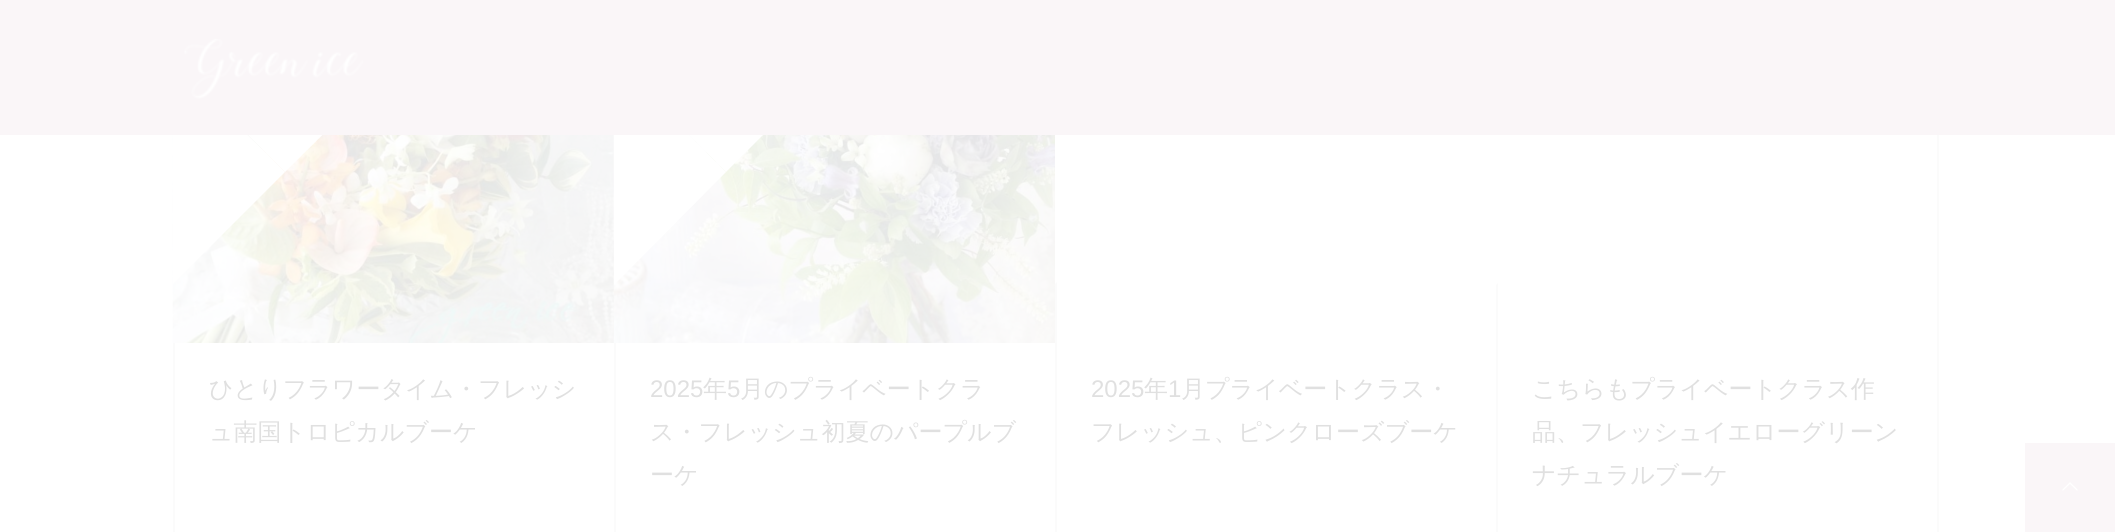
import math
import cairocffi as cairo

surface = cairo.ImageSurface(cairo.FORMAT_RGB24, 2115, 532)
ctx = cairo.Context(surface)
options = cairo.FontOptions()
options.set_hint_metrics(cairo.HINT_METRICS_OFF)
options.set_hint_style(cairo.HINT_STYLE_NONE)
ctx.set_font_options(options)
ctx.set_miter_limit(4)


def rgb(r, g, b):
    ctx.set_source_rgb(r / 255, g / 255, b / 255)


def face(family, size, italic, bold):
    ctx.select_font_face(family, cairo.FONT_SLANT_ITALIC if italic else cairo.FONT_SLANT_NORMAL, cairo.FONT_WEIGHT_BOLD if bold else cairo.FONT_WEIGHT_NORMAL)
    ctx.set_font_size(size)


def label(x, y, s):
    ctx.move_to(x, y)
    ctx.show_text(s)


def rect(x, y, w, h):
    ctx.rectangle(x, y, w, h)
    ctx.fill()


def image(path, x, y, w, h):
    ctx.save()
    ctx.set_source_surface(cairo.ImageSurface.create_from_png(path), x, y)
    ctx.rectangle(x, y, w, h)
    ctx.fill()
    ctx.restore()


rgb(255, 255, 255)
ctx.paint()
image('image1.png', 172, 135, 442, 208)
rgb(255, 255, 255)
ctx.new_path()
ctx.move_to(172, 60)
ctx.line_to(398, 60)
ctx.line_to(285, 172)
ctx.close_path()
ctx.fill()
ctx.save()
ctx.rectangle(173, 62, 240, 240)
ctx.clip()
ctx.new_path()
ctx.move_to(172, 285)
ctx.line_to(172, 60)
ctx.line_to(285, 172)
ctx.close_path()
ctx.fill()
ctx.restore()
image('image2.png', 613, 135, 442, 208)
ctx.new_path()
ctx.move_to(614, 60)
ctx.line_to(838, 60)
ctx.line_to(726, 172)
ctx.close_path()
ctx.fill()
ctx.new_path()
ctx.move_to(614, 285)
ctx.line_to(614, 60)
ctx.line_to(726, 172)
ctx.close_path()
ctx.fill()
rgb(251, 251, 251)
rect(1055, 282, 2, 250)
ctx.save()
ctx.rectangle(1055, 62, 240, 240)
ctx.clip()
rgb(255, 255, 255)
ctx.new_path()
ctx.move_to(1054, 285)
ctx.line_to(1054, 60)
ctx.line_to(1167, 172)
ctx.close_path()
ctx.fill()
ctx.restore()
rect(1496, 283, 2, 249)
rgb(255, 255, 255)
ctx.new_path()
ctx.move_to(1496, 285)
ctx.line_to(1496, 60)
ctx.line_to(1608, 172)
ctx.close_path()
ctx.fill()
rgb(250, 246, 248)
rect(0, 0, 2115, 135)
image('image0.png', 184, 38, 180, 61)
rgb(251, 251, 251)
rect(173, 343, 2, 189)
face('WenQuanYi Zen Hei Medium', 24, 0, 0)
rgb(224, 224, 224)
label(209, 397, 'ひとりフラワータイム・フレッシ')
label(209, 440, 'ュ南国トロピカルブーケ')
rgb(251, 251, 251)
rect(614, 343, 2, 189)
face('Liberation Sans', 24, 0, 0)
rgb(224, 224, 224)
label(650, 397, '2025')
face('WenQuanYi Zen Hei Medium', 24, 0, 0)
label(703, 397, '年')
face('Liberation Sans', 24, 0, 0)
label(727, 397, '5')
face('WenQuanYi Zen Hei Medium', 24, 0, 0)
label(740, 397, '月のプライベートクラ')
label(650, 440, 'ス・フレッシュ初夏のパープルブ')
label(650, 483, 'ーケ')
face('Liberation Sans', 24, 0, 0)
label(1091, 397, '2025')
face('WenQuanYi Zen Hei Medium', 24, 0, 0)
label(1144, 397, '年')
face('Liberation Sans', 24, 0, 0)
label(1168, 397, '1')
face('WenQuanYi Zen Hei Medium', 24, 0, 0)
label(1181, 397, '月プライベートクラス・')
label(1091, 440, 'フレッシュ、ピンクローズブーケ')
rgb(251, 251, 251)
rect(1937, 135, 2, 397)
rgb(224, 224, 224)
label(1532, 397, 'こちらもプライベートクラス作')
label(1532, 440, '品、フレッシュイエローグリーン')
label(1532, 483, 'ナチュラルブーケ')
rgb(250, 246, 248)
rect(2025, 443, 90, 89)
image('image3.png', 2062, 482, 16, 9)
surface.write_to_png('render.png')
